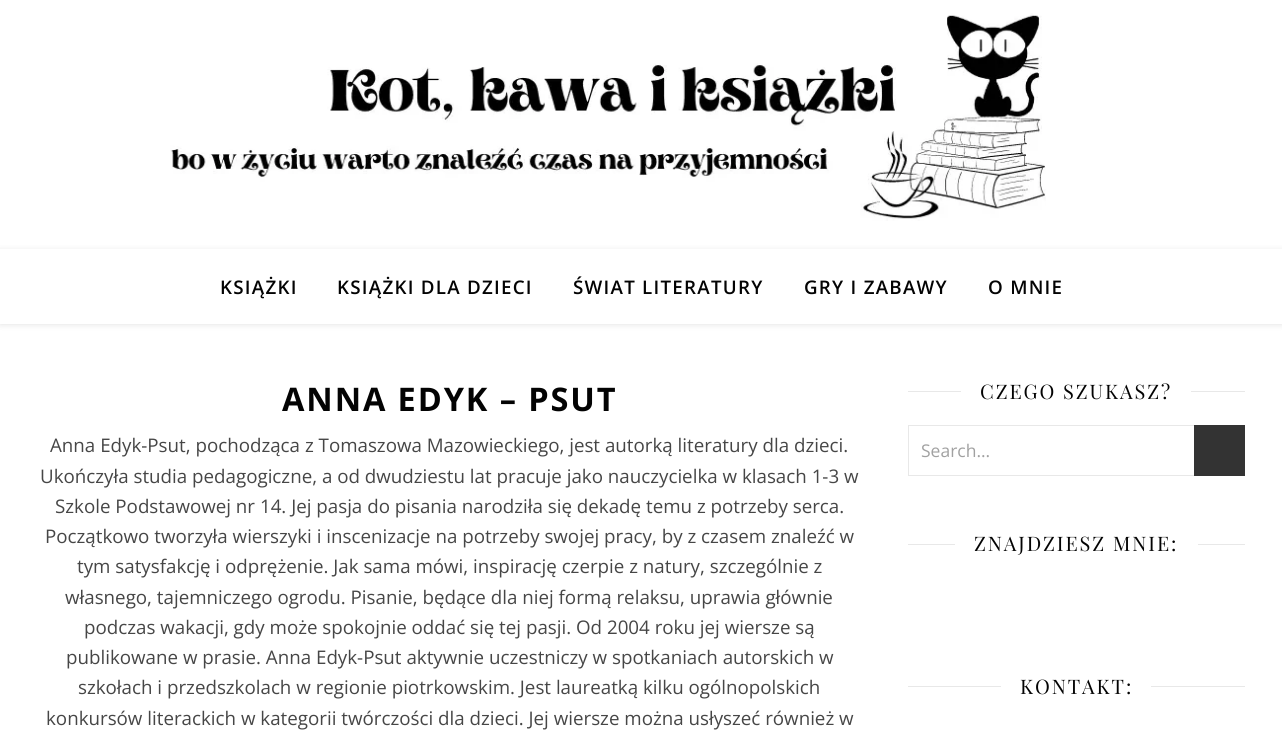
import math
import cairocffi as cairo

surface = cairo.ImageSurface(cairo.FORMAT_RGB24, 1282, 737)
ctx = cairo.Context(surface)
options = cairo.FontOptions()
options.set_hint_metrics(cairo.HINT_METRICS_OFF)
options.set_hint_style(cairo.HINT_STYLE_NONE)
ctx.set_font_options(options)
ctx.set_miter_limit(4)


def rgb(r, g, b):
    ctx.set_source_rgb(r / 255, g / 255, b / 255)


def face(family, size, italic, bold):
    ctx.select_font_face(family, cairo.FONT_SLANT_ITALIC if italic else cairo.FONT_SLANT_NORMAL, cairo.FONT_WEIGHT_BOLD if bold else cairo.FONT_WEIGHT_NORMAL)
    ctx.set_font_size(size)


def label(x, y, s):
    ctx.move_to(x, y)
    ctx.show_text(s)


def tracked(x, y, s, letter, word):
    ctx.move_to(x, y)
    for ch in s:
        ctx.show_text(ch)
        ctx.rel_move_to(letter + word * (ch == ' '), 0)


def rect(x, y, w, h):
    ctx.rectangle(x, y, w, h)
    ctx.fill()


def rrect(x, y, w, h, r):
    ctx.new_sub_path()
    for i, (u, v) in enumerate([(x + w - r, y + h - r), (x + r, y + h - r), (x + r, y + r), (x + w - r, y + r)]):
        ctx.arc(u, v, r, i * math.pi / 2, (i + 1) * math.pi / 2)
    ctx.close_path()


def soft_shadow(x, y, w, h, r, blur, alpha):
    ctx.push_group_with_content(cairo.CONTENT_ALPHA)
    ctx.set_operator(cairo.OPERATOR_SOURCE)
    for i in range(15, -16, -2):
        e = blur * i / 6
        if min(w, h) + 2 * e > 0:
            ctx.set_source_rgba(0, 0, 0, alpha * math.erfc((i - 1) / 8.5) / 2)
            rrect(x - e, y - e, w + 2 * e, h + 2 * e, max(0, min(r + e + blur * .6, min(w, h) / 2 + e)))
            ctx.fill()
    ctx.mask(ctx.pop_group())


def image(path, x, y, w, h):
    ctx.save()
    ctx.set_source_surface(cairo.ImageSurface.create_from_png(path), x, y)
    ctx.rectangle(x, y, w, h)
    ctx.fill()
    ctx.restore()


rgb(255, 255, 255)
ctx.paint()
image('image0.png', 170, 13, 876, 208)
rgb(0, 0, 0)
soft_shadow(0, 250, 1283, 75, 0, 3, 0.1)
rgb(255, 255, 255)
rect(0, 249, 1282, 75)
face('Open Sans SemiBold', 18.75, 0, 0)
rgb(3, 3, 3)
tracked(220, 294, 'KSIĄŻKI', 1.25, 0)
tracked(337, 294, 'KSIĄŻKI DLA DZIECI', 1.25, 0)
tracked(573, 294, 'ŚWIAT LITERATURY', 1.25, 0)
tracked(804, 294, 'GRY I ZABAWY', 1.25, 0)
tracked(988, 294, 'O MNIE', 1.25, 0)
face('Open Sans', 32.5, 0, 1)
tracked(282, 411, 'ANNA EDYK – PSUT', 1.9, 0)
face('Open Sans', 18.75, 0, 0)
rgb(70, 70, 70)
label(50, 452, 'Anna Edyk-Psut, pochodząca z Tomaszowa Mazowieckiego, jest autorką literatury dla dzieci.')
label(40, 483, 'Ukończyła studia pedagogiczne, a od dwudziestu lat pracuje jako nauczycielka w klasach 1-3 w')
label(55, 513, 'Szkole Podstawowej nr 14. Jej pasja do pisania narodziła się dekadę temu z potrzeby serca.')
label(45, 543, 'Początkowo tworzyła wierszyki i inscenizacje na potrzeby swojej pracy, by z czasem znaleźć w')
label(77, 573, 'tym satysfakcję i odprężenie. Jak sama mówi, inspirację czerpie z natury, szczególnie z')
label(65, 604, 'własnego, tajemniczego ogrodu. Pisanie, będące dla niej formą relaksu, uprawia głównie')
label(84, 634, 'podczas wakacji, gdy może spokojnie oddać się tej pasji. Od 2004 roku jej wiersze są')
label(66, 664, 'publikowane w prasie. Anna Edyk-Psut aktywnie uczestniczy w spotkaniach autorskich w')
label(78, 694, 'szkołach i przedszkolach w regionie piotrkowskim. Jest laureatką kilku ogólnopolskich')
label(46, 725, 'konkursów literackich w kategorii twórczości dla dzieci. Jej wiersze można usłyszeć również w')
rgb(232, 232, 232)
rect(908, 391, 53, 1)
face('Playfair Display', 20, 0, 0)
rgb(3, 3, 3)
tracked(980, 399, 'CZEGO SZUKASZ?', 1.9, 0)
rgb(232, 232, 232)
rect(1191, 391, 54, 1)
ctx.rectangle(908.5, 425.5, 336, 50)
ctx.set_line_width(1)
ctx.stroke()
face('Open Sans', 17.5, 0, 0)
rgb(161, 161, 161)
label(921, 457, 'Search...')
rgb(51, 51, 51)
rect(1194, 425, 51, 51)
rgb(232, 232, 232)
rect(908, 544, 47, 1)
face('Playfair Display', 20, 0, 0)
rgb(3, 3, 3)
tracked(974, 551, 'ZNAJDZIESZ MNIE:', 1.9, 0)
rgb(232, 232, 232)
rect(1198, 544, 47, 1)
rect(908, 686, 93, 1)
rgb(3, 3, 3)
tracked(1020, 694, 'KONTAKT:', 1.9, 0)
rgb(232, 232, 232)
rect(1151, 686, 94, 1)
surface.write_to_png('render.png')
